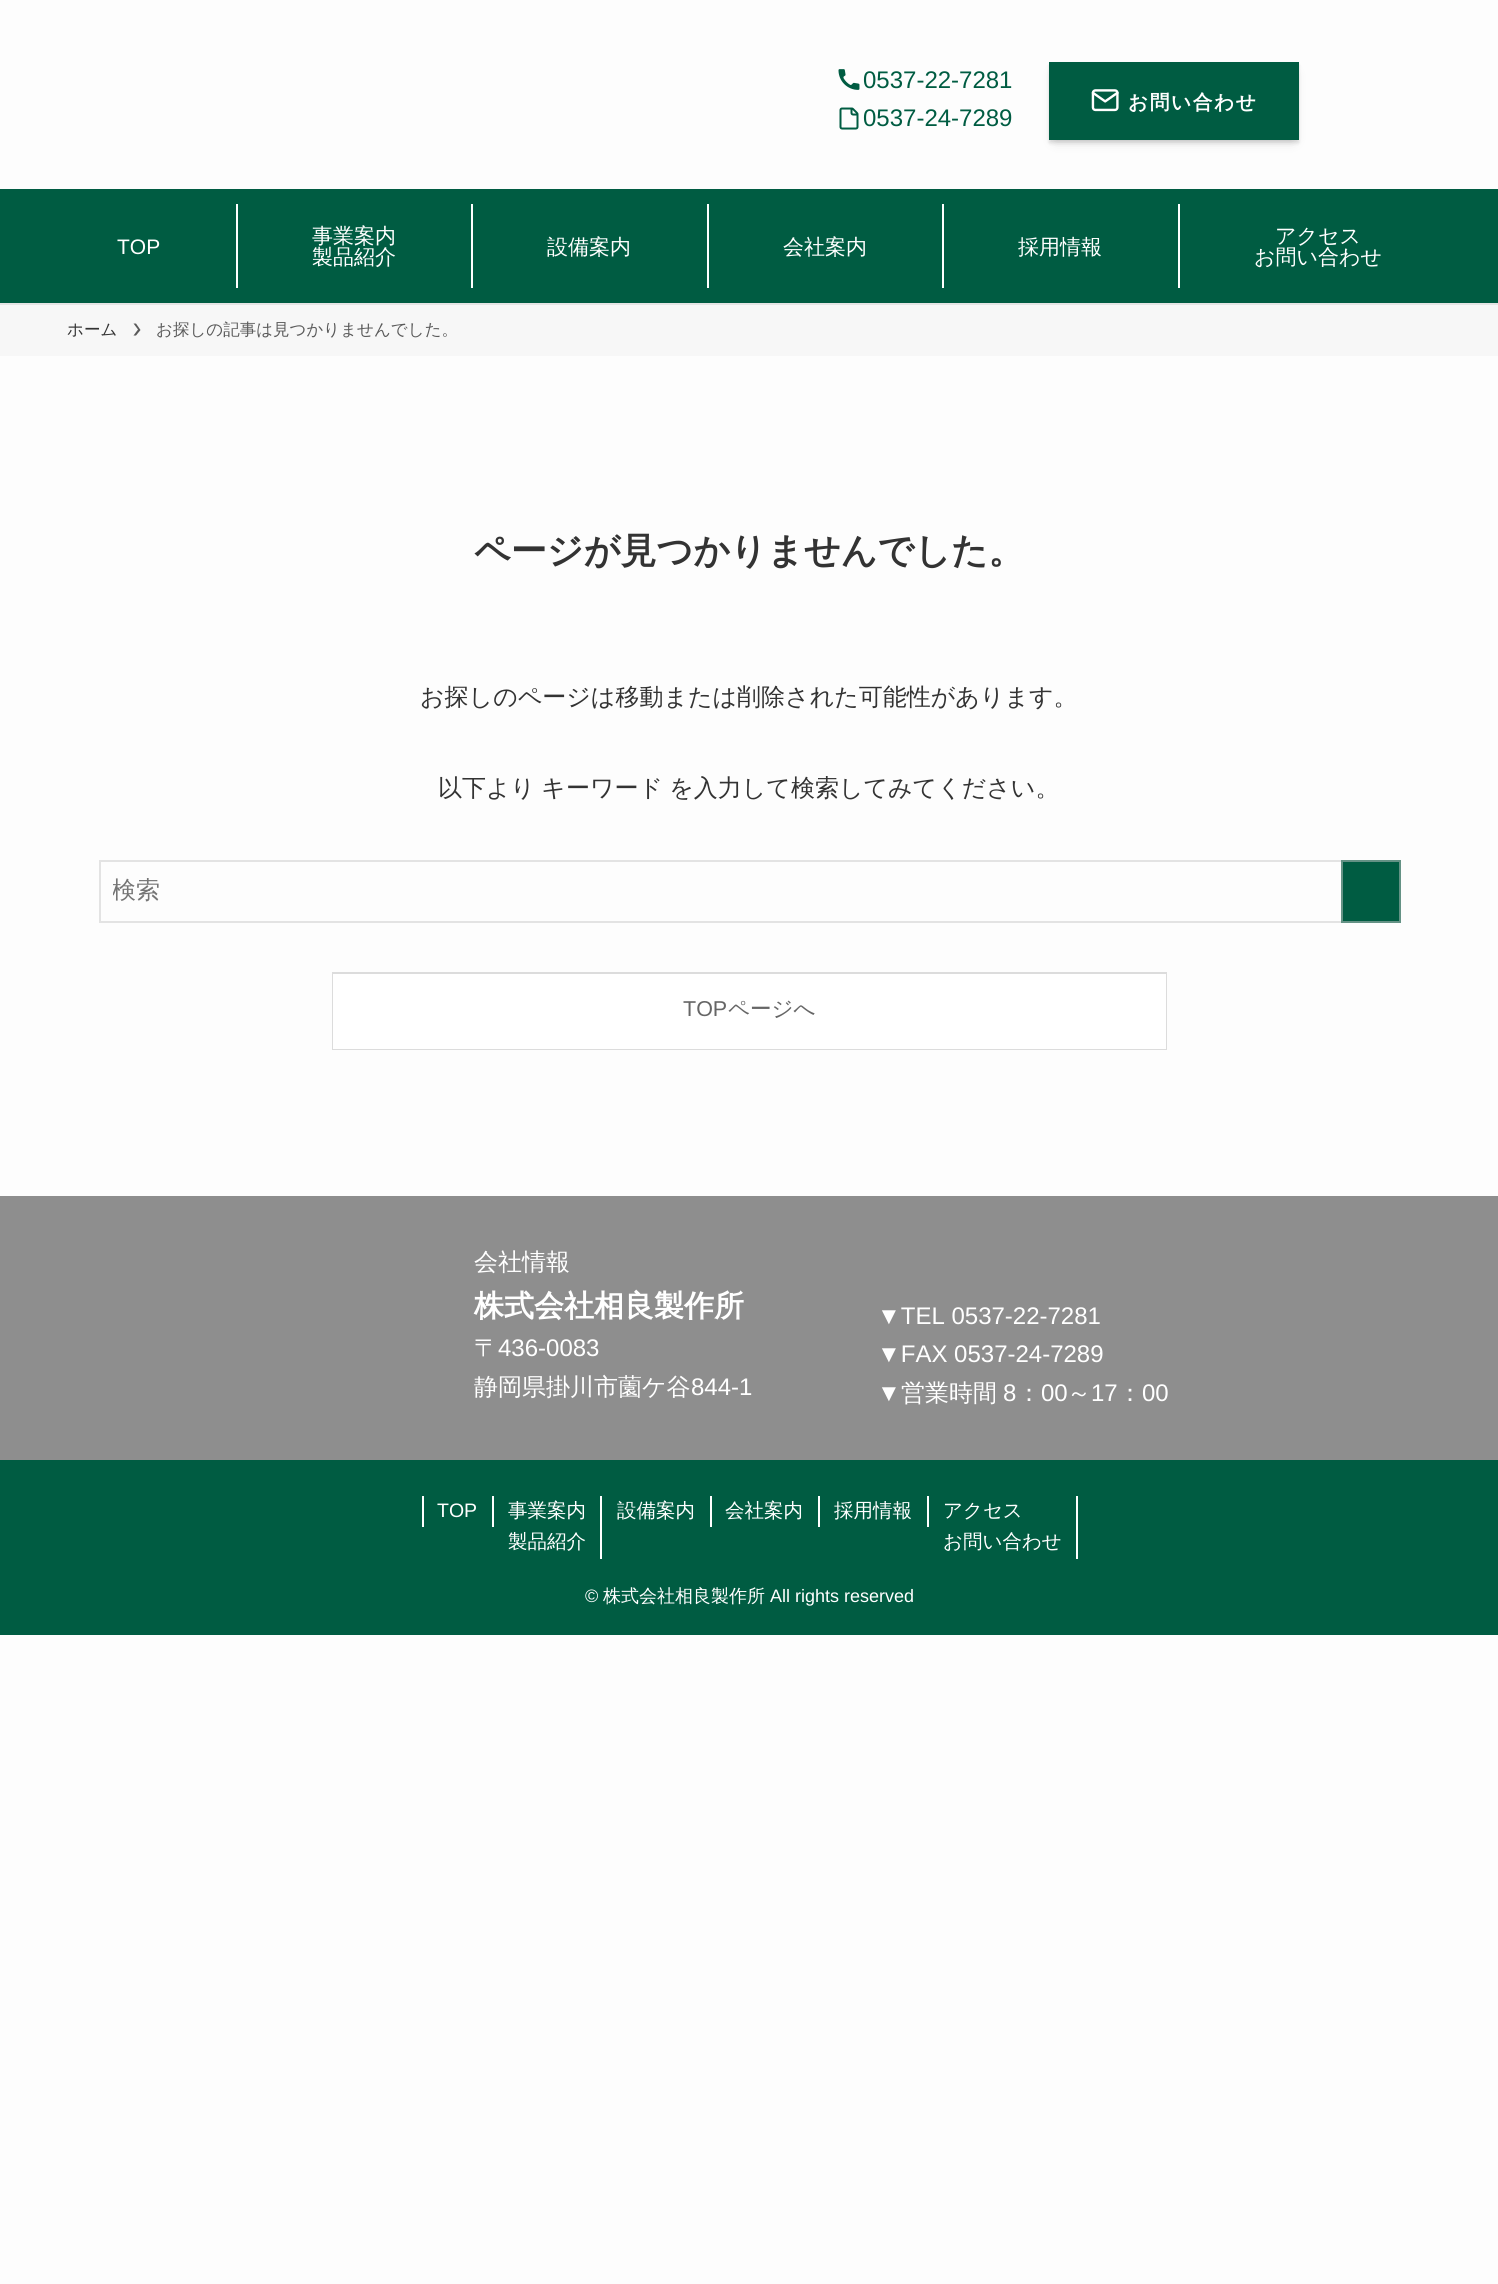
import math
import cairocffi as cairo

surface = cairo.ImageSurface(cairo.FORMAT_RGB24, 1498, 2284)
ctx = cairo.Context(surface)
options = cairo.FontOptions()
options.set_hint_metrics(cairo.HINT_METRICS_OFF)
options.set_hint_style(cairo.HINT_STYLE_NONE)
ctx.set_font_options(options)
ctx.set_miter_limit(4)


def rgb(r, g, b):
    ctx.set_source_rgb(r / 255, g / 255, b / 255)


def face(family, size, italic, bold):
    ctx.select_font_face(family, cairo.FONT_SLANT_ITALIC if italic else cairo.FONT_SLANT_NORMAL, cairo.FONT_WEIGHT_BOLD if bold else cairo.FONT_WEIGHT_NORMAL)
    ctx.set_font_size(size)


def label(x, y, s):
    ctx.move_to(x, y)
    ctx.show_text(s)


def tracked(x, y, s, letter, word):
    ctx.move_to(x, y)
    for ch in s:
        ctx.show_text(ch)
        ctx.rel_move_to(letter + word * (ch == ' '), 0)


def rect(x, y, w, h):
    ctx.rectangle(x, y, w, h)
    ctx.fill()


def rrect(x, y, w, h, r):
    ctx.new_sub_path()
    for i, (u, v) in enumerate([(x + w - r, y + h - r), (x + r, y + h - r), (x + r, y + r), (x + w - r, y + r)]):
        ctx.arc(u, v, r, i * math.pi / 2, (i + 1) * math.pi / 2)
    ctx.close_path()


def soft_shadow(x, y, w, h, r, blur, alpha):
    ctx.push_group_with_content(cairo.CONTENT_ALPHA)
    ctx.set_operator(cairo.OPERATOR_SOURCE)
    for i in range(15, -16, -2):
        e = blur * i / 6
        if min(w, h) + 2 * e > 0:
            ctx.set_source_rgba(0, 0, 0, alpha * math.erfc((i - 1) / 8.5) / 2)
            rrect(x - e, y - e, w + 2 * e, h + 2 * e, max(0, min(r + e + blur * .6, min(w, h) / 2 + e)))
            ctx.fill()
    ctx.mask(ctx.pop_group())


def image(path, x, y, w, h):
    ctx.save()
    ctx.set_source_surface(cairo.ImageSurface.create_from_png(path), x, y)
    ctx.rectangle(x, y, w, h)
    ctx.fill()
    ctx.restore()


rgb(253, 253, 253)
ctx.paint()
rgb(228, 228, 228)
rect(0, 303, 1498, 2)
image('image0.png', 838, 69, 22, 21)
face('Liberation Sans', 24, 0, 0)
rgb(0, 92, 66)
label(863, 88, '0537-22-7281')
image('image1.png', 839, 107, 20, 23)
label(863, 126, '0537-24-7289')
rgb(0, 0, 0)
soft_shadow(1055, 74, 238, 66, 0, 6, 0.2)
soft_shadow(1049, 65, 250, 78, 0, 1.5, 0.1)
rgb(0, 92, 66)
rect(1049, 62, 250, 78)
image('image2.png', 1091, 89, 28, 23)
face('WenQuanYi Zen Hei', 19.75, 0, 1)
rgb(255, 255, 255)
tracked(1128, 109, 'お問い合わせ', 1.5, 0)
rgb(0, 92, 66)
rect(0, 189, 1498, 114)
rgb(255, 255, 255)
rect(236, 204, 2, 84)
face('Liberation Sans', 21, 0, 0)
label(117, 254, 'TOP')
rect(471, 204, 2, 84)
face('WenQuanYi Zen Hei Medium', 21, 0, 0)
label(312, 243, '事業案内')
label(312, 264, '製品紹介')
rect(707, 204, 2, 84)
label(547, 254, '設備案内')
rect(942, 204, 2, 84)
label(783, 254, '会社案内')
rect(1178, 204, 2, 84)
label(1018, 254, '採用情報')
label(1275, 243, 'アクセス')
label(1254, 264, 'お問い合わせ')
rgb(247, 247, 247)
rect(0, 305, 1498, 51)
face('WenQuanYi Zen Hei Medium', 16.5, 0, 0)
rgb(51, 51, 51)
label(67, 335, 'ホーム')
rgb(90, 90, 90)
ctx.new_path()
ctx.move_to(136, 323.5)
ctx.line_to(133.5, 323.5)
ctx.line_to(138, 329.5)
ctx.line_to(133.5, 335.5)
ctx.line_to(136, 335.5)
ctx.line_to(140.5, 330)
ctx.close_path()
ctx.fill()
label(156, 335, 'お探しの記事は見つかりませんでした。')
face('WenQuanYi Zen Hei', 36, 0, 1)
rgb(51, 51, 51)
label(474, 563, 'ページが見つかりませんでした。')
face('WenQuanYi Zen Hei Medium', 24, 0, 0)
label(420, 705, 'お探しのページは移動または削除された可能性があります。')
tracked(438, 796, '以下より キーワード を入力して検索してみてください。', 0, -1)
ctx.rectangle(100, 861, 1300, 61)
rgb(227, 227, 227)
ctx.stroke()
ctx.save()
ctx.rectangle(113, 876, 1221, 32)
ctx.clip()
rgb(117, 117, 117)
label(112, 898, '検索')
ctx.restore()
rgb(0, 92, 66)
ctx.rectangle(1342, 861, 58, 61)
ctx.fill_preserve()
rgb(100, 146, 133)
ctx.stroke()
ctx.rectangle(333, 973, 833, 76)
rgb(220, 220, 220)
ctx.stroke()
rgb(255, 255, 255)
rect(333, 974, 833, 75)
face('Liberation Sans', 21.5, 0, 0)
rgb(102, 102, 102)
label(683, 1016, 'TOP')
face('WenQuanYi Zen Hei Medium', 21.5, 0, 0)
label(728, 1016, 'ページへ')
rgb(0, 92, 66)
rect(0, 1460, 1498, 175)
rgb(142, 142, 142)
rect(0, 1196, 1498, 264)
face('WenQuanYi Zen Hei Medium', 24, 0, 0)
rgb(255, 255, 255)
label(474, 1270, '会社情報')
face('WenQuanYi Zen Hei', 30, 0, 1)
label(474, 1316, '株式会社相良製作所')
face('WenQuanYi Zen Hei Medium', 24, 0, 0)
label(474, 1356, '〒')
face('Liberation Sans', 24, 0, 0)
label(498, 1356, '436-0083')
face('WenQuanYi Zen Hei Medium', 24, 0, 0)
label(474, 1395, '静岡県掛川市薗ケ谷')
face('Liberation Sans', 24, 0, 0)
label(691, 1395, '844-1')
label(877, 1324, '▼TEL 0537-22-7281')
label(877, 1362, '▼FAX 0537-24-7289')
label(877, 1401, '▼')
face('WenQuanYi Zen Hei Medium', 24, 0, 0)
label(901, 1401, '営業時間')
face('Liberation Sans', 24, 0, 0)
label(1003, 1401, '8')
face('WenQuanYi Zen Hei Medium', 24, 0, 0)
label(1017, 1401, '：')
face('Liberation Sans', 24, 0, 0)
label(1041, 1401, '00')
face('WenQuanYi Zen Hei Medium', 24, 0, 0)
label(1067, 1401, '～')
face('Liberation Sans', 24, 0, 0)
label(1091, 1401, '17')
face('WenQuanYi Zen Hei Medium', 24, 0, 0)
label(1118, 1401, '：')
face('Liberation Sans', 24, 0, 0)
label(1142, 1401, '00')
rect(492, 1496, 2, 31)
rect(422, 1496, 2, 31)
face('Liberation Sans', 19.5, 0, 0)
label(437, 1517, 'TOP')
rect(600, 1496, 2, 63)
face('WenQuanYi Zen Hei Medium', 19.5, 0, 0)
label(508, 1517, '事業案内')
label(508, 1548, '製品紹介')
rect(710, 1496, 2, 31)
label(617, 1517, '設備案内')
rect(818, 1496, 2, 31)
label(725, 1517, '会社案内')
rect(927, 1496, 2, 31)
label(834, 1517, '採用情報')
rect(1076, 1496, 2, 63)
label(943, 1517, 'アクセス')
label(943, 1548, 'お問い合わせ')
face('Liberation Sans', 18, 0, 0)
label(585, 1602, '©')
face('WenQuanYi Zen Hei Medium', 18, 0, 0)
label(603, 1602, '株式会社相良製作所')
face('Liberation Sans', 18, 0, 0)
label(770, 1602, 'All rights reserved')
surface.write_to_png('render.png')
